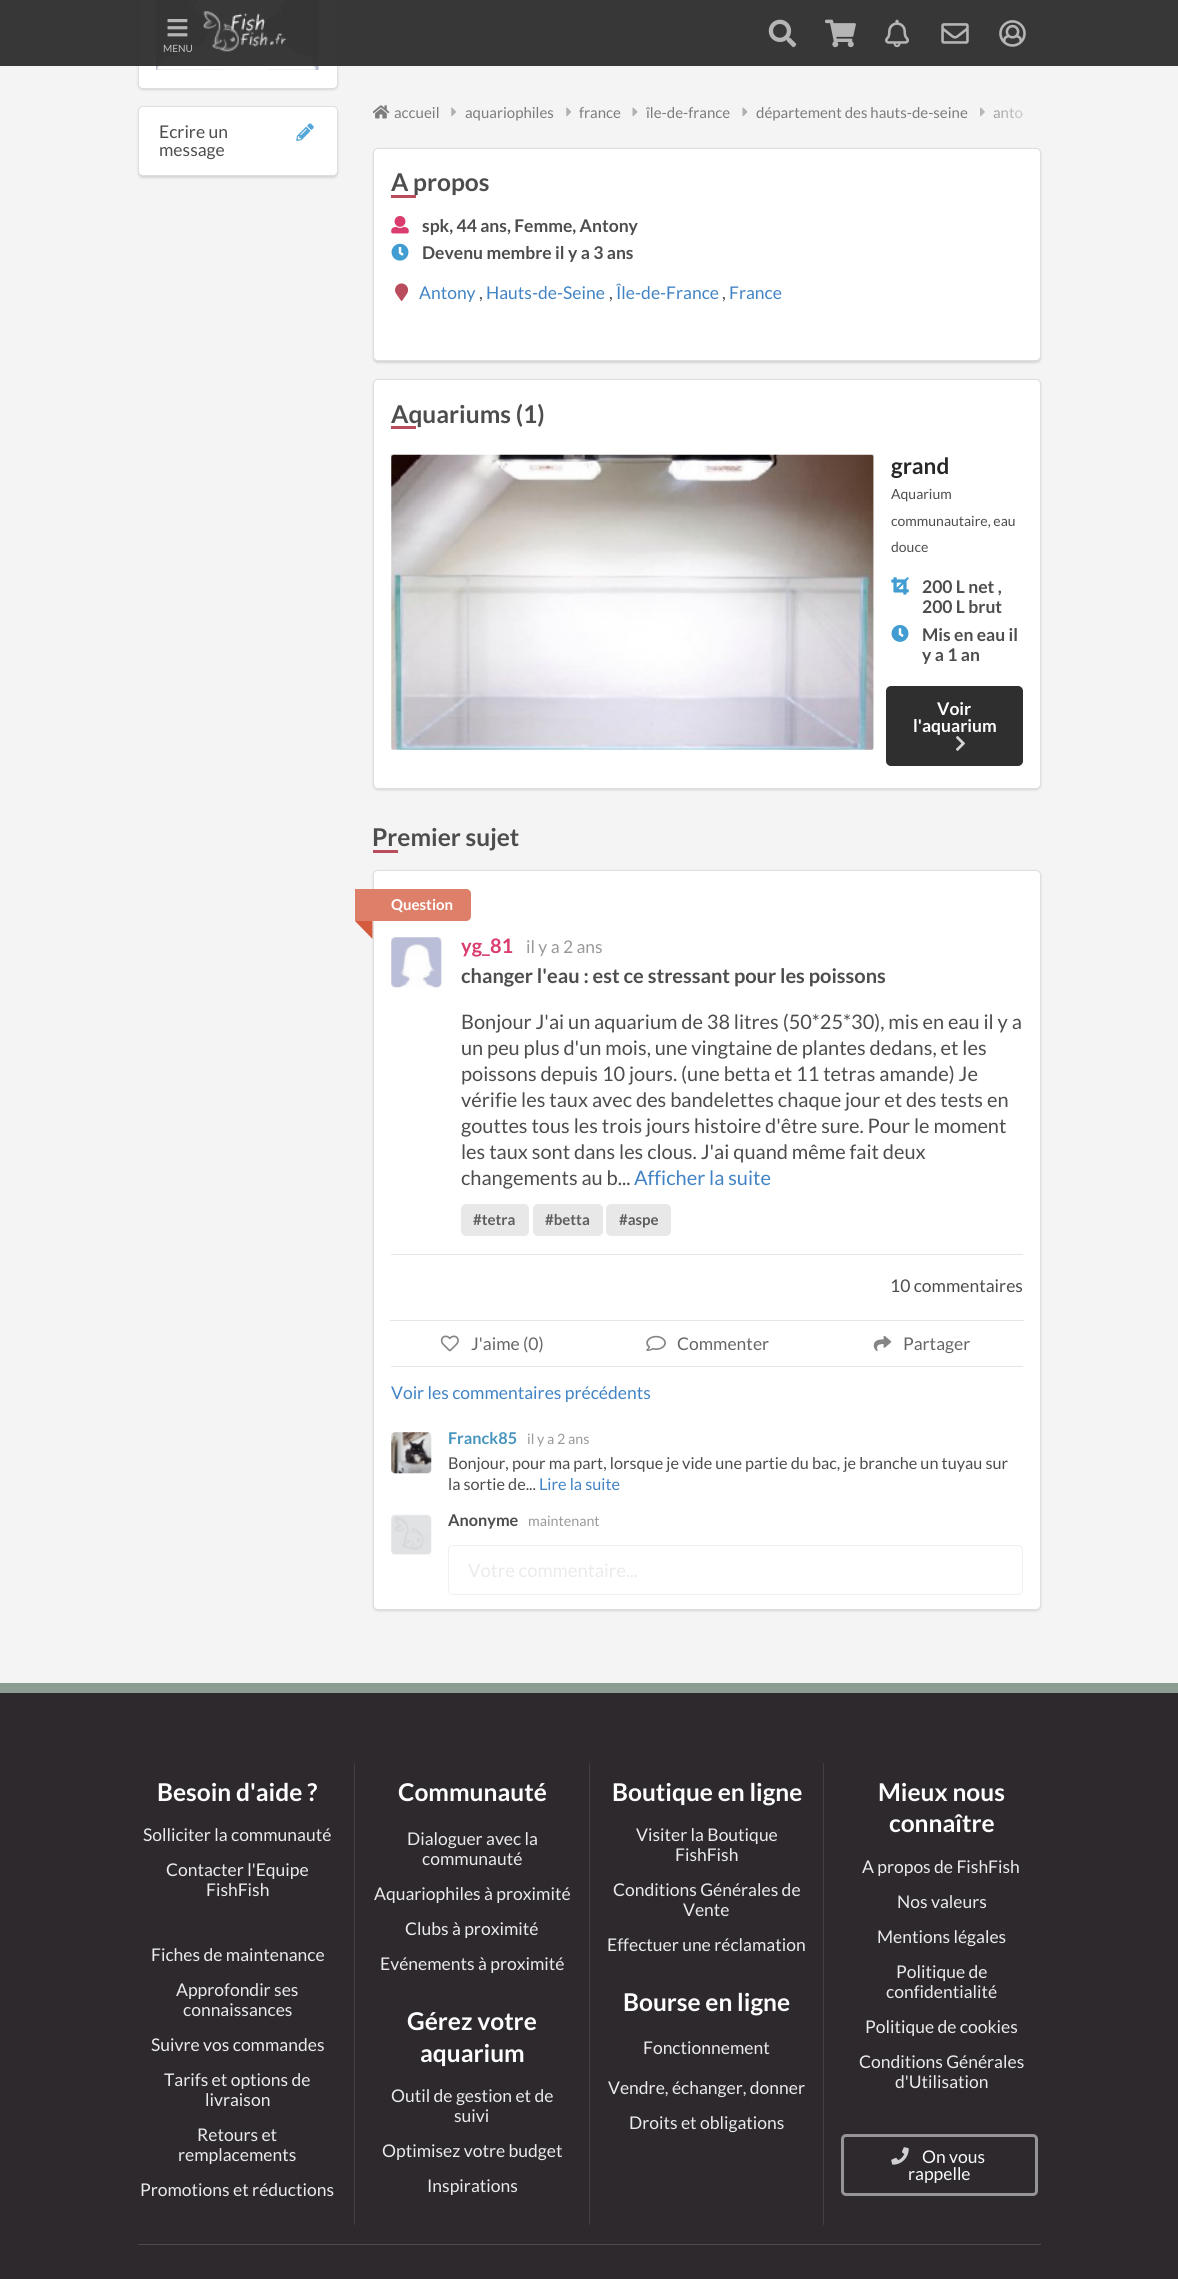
import math
import cairocffi as cairo

surface = cairo.ImageSurface(cairo.FORMAT_RGB24, 1178, 2279)
ctx = cairo.Context(surface)
options = cairo.FontOptions()
options.set_hint_metrics(cairo.HINT_METRICS_OFF)
options.set_hint_style(cairo.HINT_STYLE_NONE)
ctx.set_font_options(options)
ctx.set_miter_limit(4)


def rgb(r, g, b):
    ctx.set_source_rgb(r / 255, g / 255, b / 255)


def face(family, size, italic, bold):
    ctx.select_font_face(family, cairo.FONT_SLANT_ITALIC if italic else cairo.FONT_SLANT_NORMAL, cairo.FONT_WEIGHT_BOLD if bold else cairo.FONT_WEIGHT_NORMAL)
    ctx.set_font_size(size)


def label(x, y, s):
    ctx.move_to(x, y)
    ctx.show_text(s)


def rect(x, y, w, h):
    ctx.rectangle(x, y, w, h)
    ctx.fill()


def rrect(x, y, w, h, r):
    ctx.new_sub_path()
    for i, (u, v) in enumerate([(x + w - r, y + h - r), (x + r, y + h - r), (x + r, y + r), (x + w - r, y + r)]):
        ctx.arc(u, v, r, i * math.pi / 2, (i + 1) * math.pi / 2)
    ctx.close_path()


def soft_shadow(x, y, w, h, r, blur, alpha):
    ctx.push_group_with_content(cairo.CONTENT_ALPHA)
    ctx.set_operator(cairo.OPERATOR_SOURCE)
    for i in range(15, -16, -2):
        e = blur * i / 6
        if min(w, h) + 2 * e > 0:
            ctx.set_source_rgba(0, 0, 0, alpha * math.erfc((i - 1) / 8.5) / 2)
            rrect(x - e, y - e, w + 2 * e, h + 2 * e, max(0, min(r + e + blur * .6, min(w, h) / 2 + e)))
            ctx.fill()
    ctx.mask(ctx.pop_group())


def image(path, x, y, w, h):
    ctx.save()
    ctx.set_source_surface(cairo.ImageSurface.create_from_png(path), x, y)
    ctx.rectangle(x, y, w, h)
    ctx.fill()
    ctx.restore()


rgb(244, 244, 244)
ctx.paint()
rgb(34, 36, 38)
soft_shadow(138, -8, 200, 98, 5, 1, 0.15)
rgb(255, 255, 255)
rrect(138, -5, 200, 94, 5)
ctx.fill()
rrect(138.5, -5.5, 199, 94, 4.5)
ctx.set_source_rgba(0.133, 0.141, 0.149, 0.15)
ctx.set_line_width(1)
ctx.stroke()
image('image7.png', 156, 0, 163, 70)
ctx.set_source_rgba(0.184, 0.184, 0.184, 0.95)
rect(0, 0, 1178, 66)
image('image0.png', 167, 19, 21, 18)
face('Lato', 10, 0, 0)
rgb(195, 195, 195)
label(163, 52, 'MENU')
image('image1.png', 203, 11, 84, 41)
image('image2.png', 768, 19, 29, 29)
image('image3.png', 825, 19, 31, 29)
image('image4.png', 885, 19, 24, 29)
image('image5.png', 941, 23, 28, 21)
image('image6.png', 999, 20, 27, 27)
rgb(34, 36, 38)
soft_shadow(138, 108, 200, 70, 5, 1, 0.15)
rgb(255, 255, 255)
rrect(138, 106, 200, 70, 5)
ctx.fill()
rrect(138.5, 106.5, 199, 69, 4.5)
ctx.set_source_rgba(0.133, 0.141, 0.149, 0.15)
ctx.stroke()
face('Lato', 17.5, 0, 0)
rgb(77, 77, 77)
label(159, 138, 'Ecrire un')
image('image8.png', 296, 123, 18, 18)
label(159, 156, 'message')
image('image9.png', 373, 105, 17, 14)
face('Lato', 15, 0, 0)
rgb(124, 124, 124)
label(394, 118, 'accueil')
image('image10.png', 451, 107, 5, 10)
label(465, 118, 'aquariophiles')
image('image10.png', 566, 107, 5, 10)
label(579, 118, 'france')
image('image11.png', 632, 107, 6, 10)
label(646, 118, 'île-de-france')
image('image11.png', 742, 107, 6, 10)
label(756, 118, 'département des hauts-de-seine')
image('image12.png', 980, 107, 5, 10)
label(993, 118, 'anto')
gradient = cairo.LinearGradient(1054, 112, 974, 112)
gradient.add_color_stop_rgba(0, 0.957, 0.957, 0.957, 1)
gradient.add_color_stop_rgba(0.1, 0.957, 0.957, 0.957, 1)
gradient.add_color_stop_rgba(1, 0.957, 0.957, 0.957, 0)
ctx.set_source(gradient)
rect(980, 108, 42, 11)
rgb(34, 36, 38)
soft_shadow(373, 149, 668, 214, 5, 1, 0.15)
rgb(255, 255, 255)
rrect(373, 148, 668, 213, 5)
ctx.fill()
rrect(373.5, 148.5, 667, 212, 4.5)
ctx.set_source_rgba(0.133, 0.141, 0.149, 0.15)
ctx.stroke()
face('Lato', 24.5, 0, 1)
rgb(77, 77, 77)
label(391, 191, 'A propos')
rgb(185, 77, 94)
rect(391, 195, 25, 3)
image('image13.png', 391, 216, 18, 18)
face('Lato', 17.5, 0, 1)
rgb(77, 77, 77)
label(422, 232, 'spk, 44 ans, Femme, Antony')
image('image14.png', 391, 243, 18, 18)
label(422, 259, 'Devenu membre il y a 3 ans')
image('image15.png', 395, 283, 14, 18)
face('Lato', 17.5, 0, 0)
rgb(65, 131, 196)
label(419, 299, 'Antony')
rgb(77, 77, 77)
label(479, 299, ',')
rgb(65, 131, 196)
label(486, 299, 'Hauts-de-Seine')
rgb(77, 77, 77)
label(609, 299, ',')
rgb(65, 131, 196)
label(616, 299, 'Île-de-France')
rgb(77, 77, 77)
label(722, 299, ',')
rgb(65, 131, 196)
label(729, 299, 'France')
rgb(34, 36, 38)
soft_shadow(373, 380, 668, 410, 5, 1, 0.15)
rgb(255, 255, 255)
rrect(373, 379, 668, 410, 5)
ctx.fill()
rrect(373.5, 379.5, 667, 409, 4.5)
ctx.set_source_rgba(0.133, 0.141, 0.149, 0.15)
ctx.stroke()
face('Lato', 24.5, 0, 1)
rgb(77, 77, 77)
label(391, 423, 'Aquariums (1)')
rgb(185, 77, 94)
rect(391, 426, 25, 3)
image('image16.png', 391, 454, 483, 296)
face('Lato', 22.5, 0, 1)
rgb(38, 38, 38)
label(891, 474, 'grand')
face('Lato', 14, 0, 0)
rgb(77, 77, 77)
label(891, 499, 'Aquarium')
label(891, 526, 'communautaire, eau')
label(891, 552, 'douce')
image('image17.png', 891, 577, 18, 18)
face('Lato', 17.5, 0, 1)
label(922, 593, '200 L net ,')
label(922, 613, '200 L brut')
image('image18.png', 891, 625, 18, 17)
label(922, 641, 'Mis en eau il')
label(922, 661, 'y a 1 an')
rgb(47, 47, 47)
rrect(886, 686, 137, 80, 5)
ctx.fill()
rgb(255, 255, 255)
label(937, 715, 'Voir')
label(913, 732, 'l\'aquarium')
image('image19.png', 956, 736, 9, 15)
face('Lato', 24.5, 0, 1)
rgb(77, 77, 77)
label(372, 846, 'Premier sujet')
rgb(185, 77, 94)
rect(373, 850, 25, 3)
rgb(34, 36, 38)
soft_shadow(373, 871, 668, 740, 5, 1, 0.15)
rgb(255, 255, 255)
rrect(373, 870, 668, 740, 5)
ctx.fill()
rrect(373.5, 870.5, 667, 739, 4.5)
ctx.set_source_rgba(0.133, 0.141, 0.149, 0.15)
ctx.stroke()
rgb(222, 127, 105)
ctx.new_path()
ctx.move_to(355, 889)
ctx.line_to(466, 889)
ctx.curve_to(469, 889, 471, 891, 471, 894)
ctx.line_to(471, 916)
ctx.curve_to(471, 919, 469, 921, 466, 921)
ctx.line_to(355, 921)
ctx.close_path()
ctx.fill()
face('Lato', 15, 0, 1)
rgb(255, 255, 255)
label(391, 910, 'Question')
rgb(213, 91, 63)
ctx.new_path()
ctx.move_to(372.5, 921)
ctx.line_to(372.5, 939)
ctx.line_to(355, 921)
ctx.close_path()
ctx.fill()
image('image20.png', 391, 937, 51, 51)
face('Lato', 20, 0, 1)
rgb(218, 60, 109)
label(461, 953, 'yg_81')
face('Lato', 17.5, 0, 0)
rgb(153, 153, 153)
label(526, 953, 'il y a 2 ans')
face('Lato', 20, 0, 1)
rgb(77, 77, 77)
label(461, 983, 'changer l\'eau : est ce stressant pour les poissons')
face('Lato', 20, 0, 0)
label(461, 1029, 'Bonjour J\'ai un aquarium de 38 litres (50*25*30), mis en eau il y a')
label(461, 1055, 'un peu plus d\'un mois, une vingtaine de plantes dedans, et les')
label(461, 1081, 'poissons depuis 10 jours. (une betta et 11 tetras amande) Je')
label(461, 1107, 'vérifie les taux avec des bandelettes chaque jour et des tests en')
label(461, 1133, 'gouttes tous les trois jours histoire d\'être sure. Pour le moment')
label(461, 1159, 'les taux sont dans les clous. J\'ai quand même fait deux')
label(461, 1185, 'changements au b...')
rgb(65, 131, 196)
label(634, 1185, 'Afficher la suite')
rgb(232, 232, 232)
rrect(461, 1204, 68, 32, 5)
ctx.fill()
face('Lato', 15, 0, 1)
rgb(93, 93, 93)
label(473, 1225, '#tetra')
rgb(232, 232, 232)
rrect(533, 1204, 70, 32, 5)
ctx.fill()
rgb(93, 93, 93)
label(545, 1225, '#betta')
rgb(232, 232, 232)
rrect(606, 1204, 65, 32, 5)
ctx.fill()
rgb(93, 93, 93)
label(619, 1225, '#aspe')
rgb(229, 229, 230)
rect(391, 1254, 632, 1)
face('Lato', 17.5, 0, 0)
rgb(77, 77, 77)
label(890, 1292, '10 commentaires')
rgb(229, 229, 230)
rect(390, 1320, 634, 1)
image('image21.png', 440, 1335, 19, 17)
rgb(102, 102, 102)
label(471, 1350, 'J\'aime (0)')
image('image22.png', 646, 1335, 20, 16)
label(677, 1350, 'Commenter')
image('image23.png', 873, 1335, 19, 16)
label(903, 1350, 'Partager')
rgb(229, 229, 230)
rect(391, 1366, 632, 1)
rgb(65, 131, 196)
label(391, 1399, 'Voir les commentaires précédents')
image('image24.png', 391, 1432, 41, 42)
face('Lato', 16.25, 0, 1)
rgb(70, 148, 189)
label(448, 1444, 'Franck85')
face('Lato', 14.25, 0, 0)
rgb(153, 153, 153)
label(527, 1444, 'il y a 2 ans')
face('Lato', 16.25, 0, 0)
rgb(77, 77, 77)
label(448, 1469, 'Bonjour, pour ma part, lorsque je vide une partie du bac, je branche un tuyau sur')
label(448, 1490, 'la sortie de...')
rgb(65, 131, 196)
label(539, 1490, 'Lire la suite')
image('image25.png', 391, 1514, 41, 41)
face('Lato', 16.25, 0, 1)
rgb(77, 77, 77)
label(448, 1526, 'Anonyme')
face('Lato', 14.25, 0, 0)
rgb(153, 153, 153)
label(528, 1526, 'maintenant')
rrect(448.5, 1545.5, 574, 49, 4.5)
rgb(240, 240, 240)
ctx.stroke()
face('Lato', 18.5, 0, 0)
rgb(235, 235, 235)
label(468, 1577, 'Votre commentaire...')
rgb(46, 41, 45)
rect(0, 1693, 1178, 586)
rgb(140, 156, 145)
rect(0, 1683, 1178, 10)
face('Lato', 24.5, 0, 1)
rgb(255, 255, 255)
label(157, 1801, 'Besoin d\'aide ?')
face('Lato', 17.5, 0, 0)
rgb(235, 235, 235)
label(143, 1841, 'Solliciter la communauté')
label(166, 1876, 'Contacter l\'Equipe')
label(206, 1896, 'FishFish')
label(151, 1961, 'Fiches de maintenance')
label(176, 1996, 'Approfondir ses')
label(183, 2016, 'connaissances')
label(151, 2051, 'Suivre vos commandes')
label(164, 2086, 'Tarifs et options de')
label(205, 2106, 'livraison')
label(197, 2141, 'Retours et')
label(178, 2161, 'remplacements')
label(140, 2196, 'Promotions et réductions')
rgb(67, 62, 66)
rect(354, 1763, 1, 462)
face('Lato', 24.5, 0, 1)
rgb(255, 255, 255)
label(398, 1801, 'Communauté')
face('Lato', 17.5, 0, 0)
rgb(235, 235, 235)
label(407, 1845, 'Dialoguer avec la')
label(422, 1865, 'communauté')
label(374, 1900, 'Aquariophiles à proximité')
label(405, 1935, 'Clubs à proximité')
label(380, 1970, 'Evénements à proximité')
face('Lato', 24.5, 0, 1)
rgb(255, 255, 255)
label(407, 2030, 'Gérez votre')
label(420, 2062, 'aquarium')
face('Lato', 17.5, 0, 0)
rgb(235, 235, 235)
label(391, 2102, 'Outil de gestion et de')
label(454, 2122, 'suivi')
label(382, 2157, 'Optimisez votre budget')
label(427, 2192, 'Inspirations')
rgb(67, 62, 66)
rect(589, 1763, 1, 462)
face('Lato', 24.5, 0, 1)
rgb(255, 255, 255)
label(612, 1801, 'Boutique en ligne')
face('Lato', 17.5, 0, 0)
rgb(235, 235, 235)
label(636, 1841, 'Visiter la Boutique')
label(675, 1861, 'FishFish')
label(613, 1896, 'Conditions Générales de')
label(683, 1916, 'Vente')
label(607, 1951, 'Effectuer une réclamation')
face('Lato', 24.5, 0, 1)
rgb(255, 255, 255)
label(623, 2011, 'Bourse en ligne')
face('Lato', 17.5, 0, 0)
rgb(235, 235, 235)
label(643, 2054, 'Fonctionnement')
label(608, 2094, 'Vendre, échanger, donner')
label(629, 2129, 'Droits et obligations')
rgb(67, 62, 66)
rect(823, 1763, 1, 462)
face('Lato', 24.5, 0, 1)
rgb(255, 255, 255)
label(878, 1801, 'Mieux nous')
label(889, 1832, 'connaître')
face('Lato', 17.5, 0, 0)
rgb(235, 235, 235)
label(862, 1873, 'A propos de FishFish')
label(897, 1908, 'Nos valeurs')
label(877, 1943, 'Mentions légales')
label(896, 1978, 'Politique de')
label(886, 1998, 'confidentialité')
label(865, 2033, 'Politique de cookies')
label(859, 2068, 'Conditions Générales')
label(895, 2088, 'd\'Utilisation')
rrect(842.5, 2135.5, 194, 59, 3.5)
rgb(151, 148, 150)
ctx.set_line_width(3)
ctx.stroke()
image('image26.png', 891, 2147, 18, 18)
rgb(249, 250, 251)
label(922, 2163, 'On vous')
label(908, 2180, 'rappelle')
rgb(77, 73, 77)
rect(138, 2244, 903, 1)
surface.write_to_png('render.png')
